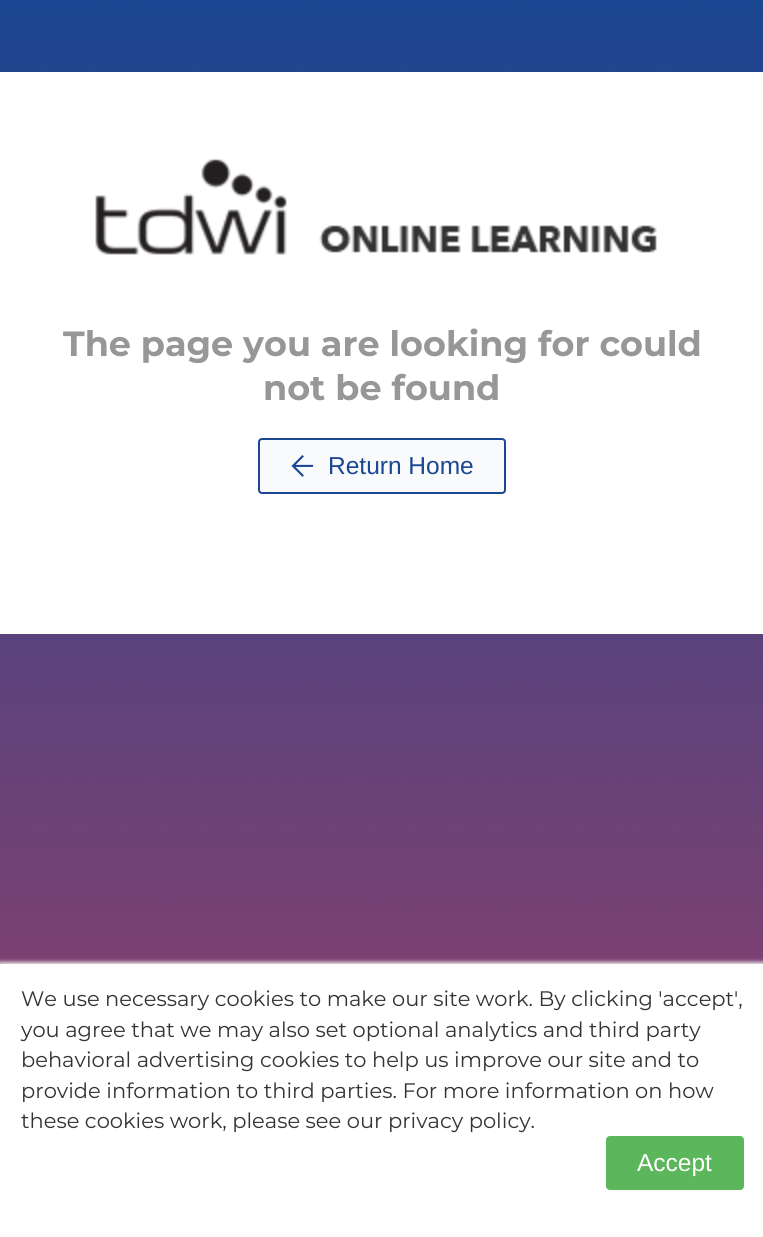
import math
import cairocffi as cairo

surface = cairo.ImageSurface(cairo.FORMAT_RGB24, 763, 1237)
ctx = cairo.Context(surface)
options = cairo.FontOptions()
options.set_hint_metrics(cairo.HINT_METRICS_OFF)
options.set_hint_style(cairo.HINT_STYLE_NONE)
ctx.set_font_options(options)
ctx.set_miter_limit(4)


def rgb(r, g, b):
    ctx.set_source_rgb(r / 255, g / 255, b / 255)


def face(family, size, italic, bold):
    ctx.select_font_face(family, cairo.FONT_SLANT_ITALIC if italic else cairo.FONT_SLANT_NORMAL, cairo.FONT_WEIGHT_BOLD if bold else cairo.FONT_WEIGHT_NORMAL)
    ctx.set_font_size(size)


def label(x, y, s):
    ctx.move_to(x, y)
    ctx.show_text(s)


def rect(x, y, w, h):
    ctx.rectangle(x, y, w, h)
    ctx.fill()


def rrect(x, y, w, h, r):
    ctx.new_sub_path()
    for i, (u, v) in enumerate([(x + w - r, y + h - r), (x + r, y + h - r), (x + r, y + r), (x + w - r, y + r)]):
        ctx.arc(u, v, r, i * math.pi / 2, (i + 1) * math.pi / 2)
    ctx.close_path()


def soft_shadow(x, y, w, h, r, blur, alpha):
    ctx.push_group_with_content(cairo.CONTENT_ALPHA)
    ctx.set_operator(cairo.OPERATOR_SOURCE)
    for i in range(15, -16, -2):
        e = blur * i / 6
        if min(w, h) + 2 * e > 0:
            ctx.set_source_rgba(0, 0, 0, alpha * math.erfc((i - 1) / 8.5) / 2)
            rrect(x - e, y - e, w + 2 * e, h + 2 * e, max(0, min(r + e + blur * .6, min(w, h) / 2 + e)))
            ctx.fill()
    ctx.mask(ctx.pop_group())


def image(path, x, y, w, h):
    ctx.save()
    ctx.set_source_surface(cairo.ImageSurface.create_from_png(path), x, y)
    ctx.rectangle(x, y, w, h)
    ctx.fill()
    ctx.restore()


rgb(255, 255, 255)
ctx.paint()
image('image0.png', 0, 0, 763, 964)
rgb(255, 255, 255)
rect(0, 72, 763, 562)
image('image1.png', 95, 159, 562, 96)
face('Montserrat', 35, 0, 1)
rgb(150, 151, 151)
label(63, 356, 'The page you are looking for could')
label(263, 400, 'not be found')
rgb(248, 250, 252)
rrect(259, 439, 246, 54, 3)
ctx.fill_preserve()
rgb(27, 70, 146)
ctx.stroke()
image('image2.png', 291, 455, 23, 22)
face('Liberation Sans', 24.5, 0, 0)
label(328, 474, 'Return Home')
rgb(233, 233, 233)
soft_shadow(0, 962, 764, 274, 0, 2, 1)
rgb(255, 255, 255)
rect(0, 964, 763, 273)
face('Montserrat', 21, 0, 0)
rgb(51, 51, 51)
label(21, 1006, 'We use necessary cookies to make our site work. By clicking \'accept\',')
label(21, 1037, 'you agree that we may also set optional analytics and third party')
label(21, 1067, 'behavioral advertising cookies to help us improve our site and to')
label(21, 1098, 'provide information to third parties. For more information on how')
label(21, 1128, 'these cookies work, please see our privacy policy.')
rgb(91, 182, 92)
rrect(606, 1136, 138, 54, 4)
ctx.fill()
face('Liberation Sans', 24.5, 0, 0)
rgb(255, 255, 255)
label(637, 1171, 'Accept')
surface.write_to_png('render.png')
